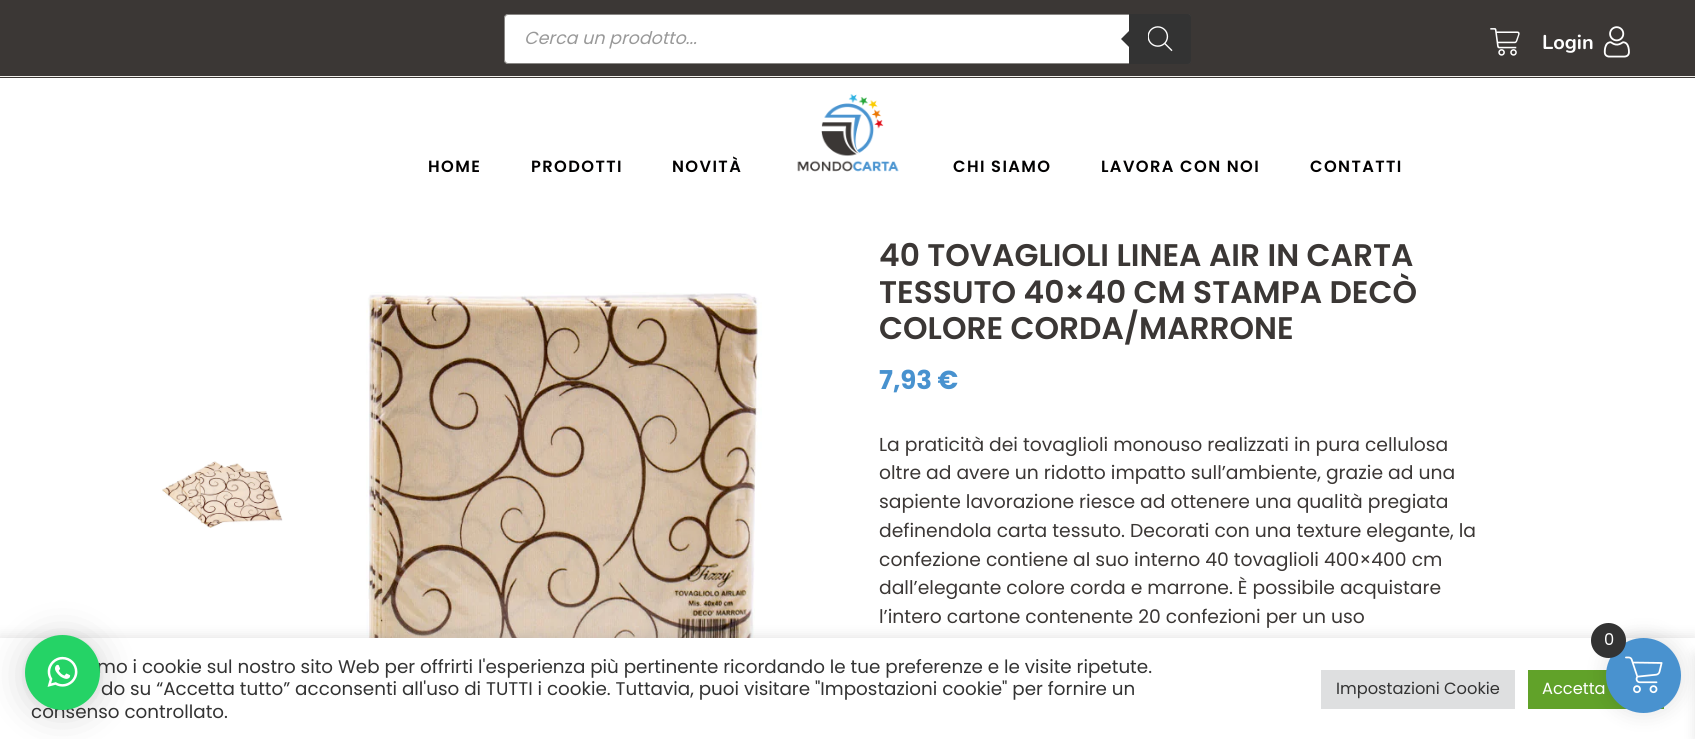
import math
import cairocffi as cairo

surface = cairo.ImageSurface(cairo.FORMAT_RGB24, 1695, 739)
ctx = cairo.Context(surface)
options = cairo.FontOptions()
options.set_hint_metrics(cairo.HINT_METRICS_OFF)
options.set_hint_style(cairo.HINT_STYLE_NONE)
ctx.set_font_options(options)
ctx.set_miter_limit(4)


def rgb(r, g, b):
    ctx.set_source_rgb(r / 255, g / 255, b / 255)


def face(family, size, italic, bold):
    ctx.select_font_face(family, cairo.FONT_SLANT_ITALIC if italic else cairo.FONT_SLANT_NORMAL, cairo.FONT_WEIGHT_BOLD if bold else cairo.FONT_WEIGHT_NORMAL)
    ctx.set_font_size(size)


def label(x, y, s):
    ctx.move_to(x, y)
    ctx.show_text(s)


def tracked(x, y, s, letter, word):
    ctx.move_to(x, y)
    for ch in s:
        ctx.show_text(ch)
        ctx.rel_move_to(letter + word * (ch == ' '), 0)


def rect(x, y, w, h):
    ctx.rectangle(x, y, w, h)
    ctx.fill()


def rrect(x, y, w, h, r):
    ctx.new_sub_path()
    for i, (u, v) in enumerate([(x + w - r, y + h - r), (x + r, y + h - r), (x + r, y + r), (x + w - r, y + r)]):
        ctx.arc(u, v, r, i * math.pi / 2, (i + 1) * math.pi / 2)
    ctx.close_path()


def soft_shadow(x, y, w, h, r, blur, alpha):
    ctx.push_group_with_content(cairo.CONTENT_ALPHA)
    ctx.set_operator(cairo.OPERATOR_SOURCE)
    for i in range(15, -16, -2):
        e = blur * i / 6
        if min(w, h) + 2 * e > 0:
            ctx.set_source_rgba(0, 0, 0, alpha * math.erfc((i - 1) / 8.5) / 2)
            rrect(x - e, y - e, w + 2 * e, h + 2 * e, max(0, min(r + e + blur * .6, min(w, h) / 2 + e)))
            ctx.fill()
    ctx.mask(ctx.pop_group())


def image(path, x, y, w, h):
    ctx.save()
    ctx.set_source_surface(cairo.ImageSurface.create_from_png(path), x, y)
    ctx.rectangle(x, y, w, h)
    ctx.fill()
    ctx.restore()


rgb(255, 255, 255)
ctx.paint()
rgb(59, 55, 53)
rect(0, 0, 1695, 78)
rgb(243, 241, 237)
rect(0, 76, 1695, 1)
rgb(255, 255, 255)
rrect(504, 14, 687, 50, 4)
ctx.fill()
rrect(504.5, 14.5, 686, 49, 3.5)
ctx.set_source_rgba(0.231, 0.216, 0.208, 0.6)
ctx.set_line_width(1)
ctx.stroke()
face('Poppins', 17.5, 1, 0)
rgb(153, 153, 153)
label(524, 44, 'Cerca un prodotto...')
rgb(51, 51, 51)
ctx.new_path()
ctx.move_to(1129, 14)
ctx.line_to(1188.5, 14)
ctx.curve_to(1190, 14, 1191, 15, 1191, 16.5)
ctx.line_to(1191, 61.5)
ctx.curve_to(1191, 63, 1190, 64, 1188.5, 64)
ctx.line_to(1129, 64)
ctx.close_path()
ctx.fill()
ctx.new_path()
ctx.move_to(1131, 29)
ctx.line_to(1131, 49)
ctx.line_to(1121, 39)
ctx.close_path()
ctx.fill()
image('image0.png', 1148, 26, 25, 26)
image('image1.png', 1490, 28, 30, 28)
face('Nunito', 20, 0, 1)
rgb(255, 255, 255)
label(1542, 49, 'Login')
image('image2.png', 1603, 26, 27, 32)
face('Poppins SemiBold', 16.25, 0, 0)
rgb(2, 1, 1)
tracked(428, 172, 'HOME', 1.4, 0)
tracked(531, 172, 'PRODOTTI', 1.4, 0)
tracked(672, 172, 'NOVITÀ', 1.4, 0)
image('image3.png', 797, 94, 102, 78)
tracked(953, 172, 'CHI SIAMO', 1.4, 0)
tracked(1101, 172, 'LAVORA CON NOI', 1.4, 0)
tracked(1310, 172, 'CONTATTI', 1.4, 0)
image('image4.png', 162, 461, 121, 67)
image('image5.png', 366, 292, 396, 346)
face('Poppins SemiBold', 31.25, 0, 0)
rgb(59, 55, 53)
label(879, 266, '40 TOVAGLIOLI LINEA AIR IN CARTA')
label(879, 303, 'TESSUTO 40×40 CM STAMPA DECÒ')
label(879, 339, 'COLORE CORDA/MARRONE')
face('Poppins', 26, 0, 1)
rgb(72, 146, 207)
label(879, 389, '7,93 €')
face('Poppins', 18.75, 0, 0)
rgb(59, 55, 53)
label(879, 451, 'La praticità dei tovaglioli monouso realizzati in pura cellulosa')
label(879, 479, 'oltre ad avere un ridotto impatto sull’ambiente, grazie ad una')
label(879, 508, 'sapiente lavorazione riesce ad ottenere una qualità pregiata')
label(879, 537, 'definendola carta tessuto. Decorati con una texture elegante, la')
label(879, 566, 'confezione contiene al suo interno 40 tovaglioli 400×400 cm')
label(879, 594, 'dall’elegante colore corda e marrone. È possibile acquistare')
label(879, 623, 'l’intero cartone contenente 20 confezioni per un uso')
rgb(172, 171, 171)
soft_shadow(0, 636, 1695, 103, 0, 6, 0.3)
rgb(255, 255, 255)
rect(0, 638, 1695, 101)
rgb(0, 0, 0)
soft_shadow(25, 638, 75, 75, 37.5, 20, 0.16)
soft_shadow(25, 636, 75, 75, 37.5, 4, 0.06)
face('Poppins', 18.33, 0, 0)
rgb(51, 51, 51)
label(97, 673, 'mo i cookie sul nostro sito Web per offrirti l\'esperienza più pertinente ricordando le tue preferenze e le visite ripetute.')
label(31, 718, 'consenso controllato.')
rgb(37, 211, 102)
ctx.new_path()
ctx.arc(62.5, 672.5, 37.5, 0, 2 * math.pi)
ctx.fill()
image('image6.png', 47, 656, 31, 31)
rgb(97, 162, 41)
rect(1528, 670, 136, 39)
rgb(0, 0, 0)
soft_shadow(1604, 635, 80, 80, 40, 9.5, 0.1)
soft_shadow(1695, 655, 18, 84, 0, 6, 0.1)
rgb(73, 146, 207)
ctx.arc(1643.5, 675.5, 37.5, 0, 2 * math.pi)
ctx.fill()
image('image7.png', 1625, 656, 38, 38)
rgb(51, 51, 51)
ctx.arc(1608.5, 640.5, 17.5, 0, 2 * math.pi)
ctx.fill()
face('Poppins', 16.25, 0, 0)
rgb(255, 255, 255)
label(1604, 645, '0')
face('Poppins', 18.33, 0, 0)
rgb(51, 51, 51)
label(101, 695, 'do su “Accetta tutto” acconsenti all\'uso di TUTTI i cookie. Tuttavia, puoi visitare "Impostazioni cookie" per fornire un')
rgb(222, 223, 224)
rect(1321, 670, 194, 39)
face('Poppins', 16.25, 0, 0)
rgb(51, 51, 51)
label(1336, 694, 'Impostazioni Cookie')
rgb(255, 255, 255)
label(1542, 694, 'Accetta')
surface.write_to_png('render.png')
